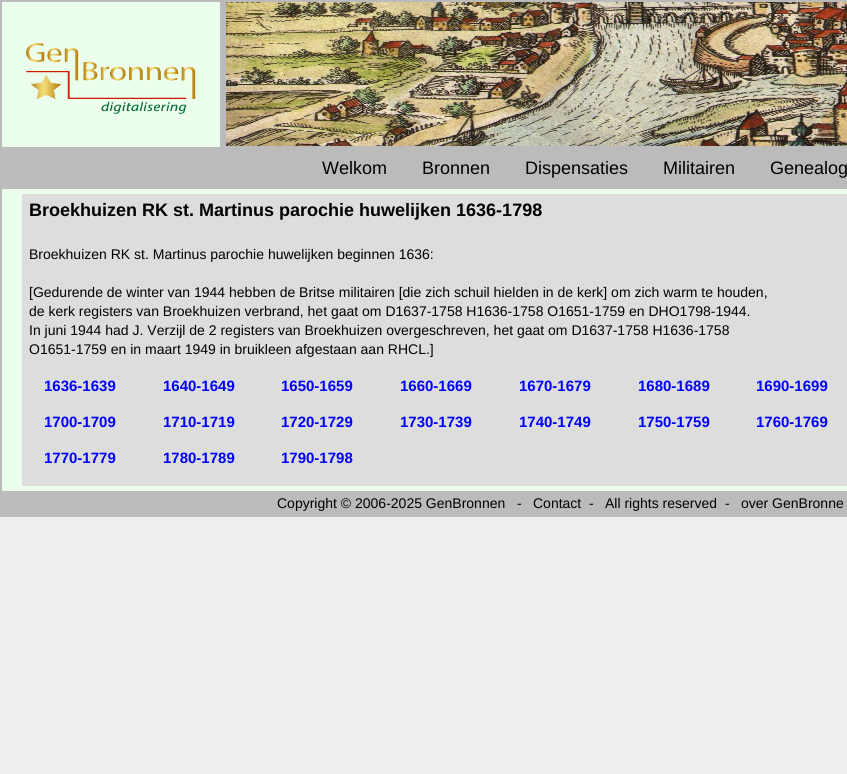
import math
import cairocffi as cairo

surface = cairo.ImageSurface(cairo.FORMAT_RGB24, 847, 774)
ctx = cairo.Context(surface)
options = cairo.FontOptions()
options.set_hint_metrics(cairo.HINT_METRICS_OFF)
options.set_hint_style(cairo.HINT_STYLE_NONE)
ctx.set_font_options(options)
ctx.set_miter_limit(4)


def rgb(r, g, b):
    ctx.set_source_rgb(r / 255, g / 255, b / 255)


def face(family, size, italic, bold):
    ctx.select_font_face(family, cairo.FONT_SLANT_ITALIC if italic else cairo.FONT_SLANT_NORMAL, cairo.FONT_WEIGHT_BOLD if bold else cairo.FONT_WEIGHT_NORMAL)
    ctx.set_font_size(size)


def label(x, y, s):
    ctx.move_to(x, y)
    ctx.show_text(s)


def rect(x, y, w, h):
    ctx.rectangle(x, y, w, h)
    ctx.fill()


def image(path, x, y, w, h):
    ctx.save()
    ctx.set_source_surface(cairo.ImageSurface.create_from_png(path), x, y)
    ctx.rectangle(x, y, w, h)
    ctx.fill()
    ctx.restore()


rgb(238, 238, 238)
ctx.paint()
rgb(236, 255, 236)
rect(2, 189, 845, 302)
ctx.rectangle(1, 1, 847, 515)
rgb(187, 187, 187)
ctx.stroke()
rect(2, 2, 845, 187)
rgb(236, 255, 236)
rect(2, 2, 218, 145)
image('image0.png', 26, 43, 170, 71)
image('image1.png', 226, 2, 621, 144)
face('Liberation Sans', 18, 0, 0)
rgb(0, 0, 0)
label(322, 174, 'Welkom')
label(422, 174, 'Bronnen')
label(525, 174, 'Dispensaties')
label(663, 174, 'Militairen')
label(770, 174, 'Genealog')
rgb(221, 221, 221)
rect(22, 194, 825, 292)
face('Liberation Sans', 18, 0, 1)
rgb(0, 0, 0)
label(29, 216, 'Broekhuizen RK st. Martinus parochie huwelijken 1636-1798')
face('Liberation Sans', 14, 0, 0)
label(29, 259, 'Broekhuizen RK st. Martinus parochie huwelijken beginnen 1636:')
label(29, 297, '[Gedurende de winter van 1944 hebben de Britse militairen [die zich schuil hielden in de kerk] om zich warm te houden,')
label(29, 316, 'de kerk registers van Broekhuizen verbrand, het gaat om D1637-1758 H1636-1758 O1651-1759 en DHO1798-1944.')
label(29, 335, 'In juni 1944 had J. Verzijl de 2 registers van Broekhuizen overgeschreven, het gaat om D1637-1758 H1636-1758')
label(29, 354, 'O1651-1759 en in maart 1949 in bruikleen afgestaan aan RHCL.]')
face('Liberation Sans', 15, 0, 1)
rgb(0, 0, 255)
label(44, 391, '1636-1639')
label(163, 391, '1640-1649')
label(281, 391, '1650-1659')
label(400, 391, '1660-1669')
label(519, 391, '1670-1679')
label(638, 391, '1680-1689')
label(756, 391, '1690-1699')
label(44, 427, '1700-1709')
label(163, 427, '1710-1719')
label(281, 427, '1720-1729')
label(400, 427, '1730-1739')
label(519, 427, '1740-1749')
label(638, 427, '1750-1759')
label(756, 427, '1760-1769')
label(44, 463, '1770-1779')
label(163, 463, '1780-1789')
label(281, 463, '1790-1798')
rgb(187, 187, 187)
rect(2, 491, 845, 24)
face('Liberation Sans', 14, 0, 0)
rgb(0, 0, 0)
label(277, 508, 'Copyright © 2006-2025 GenBronnen')
label(517, 508, '-')
label(533, 508, 'Contact')
label(589, 508, '-')
label(605, 508, 'All rights reserved')
label(725, 508, '-')
label(741, 508, 'over GenBronne')
surface.write_to_png('render.png')
